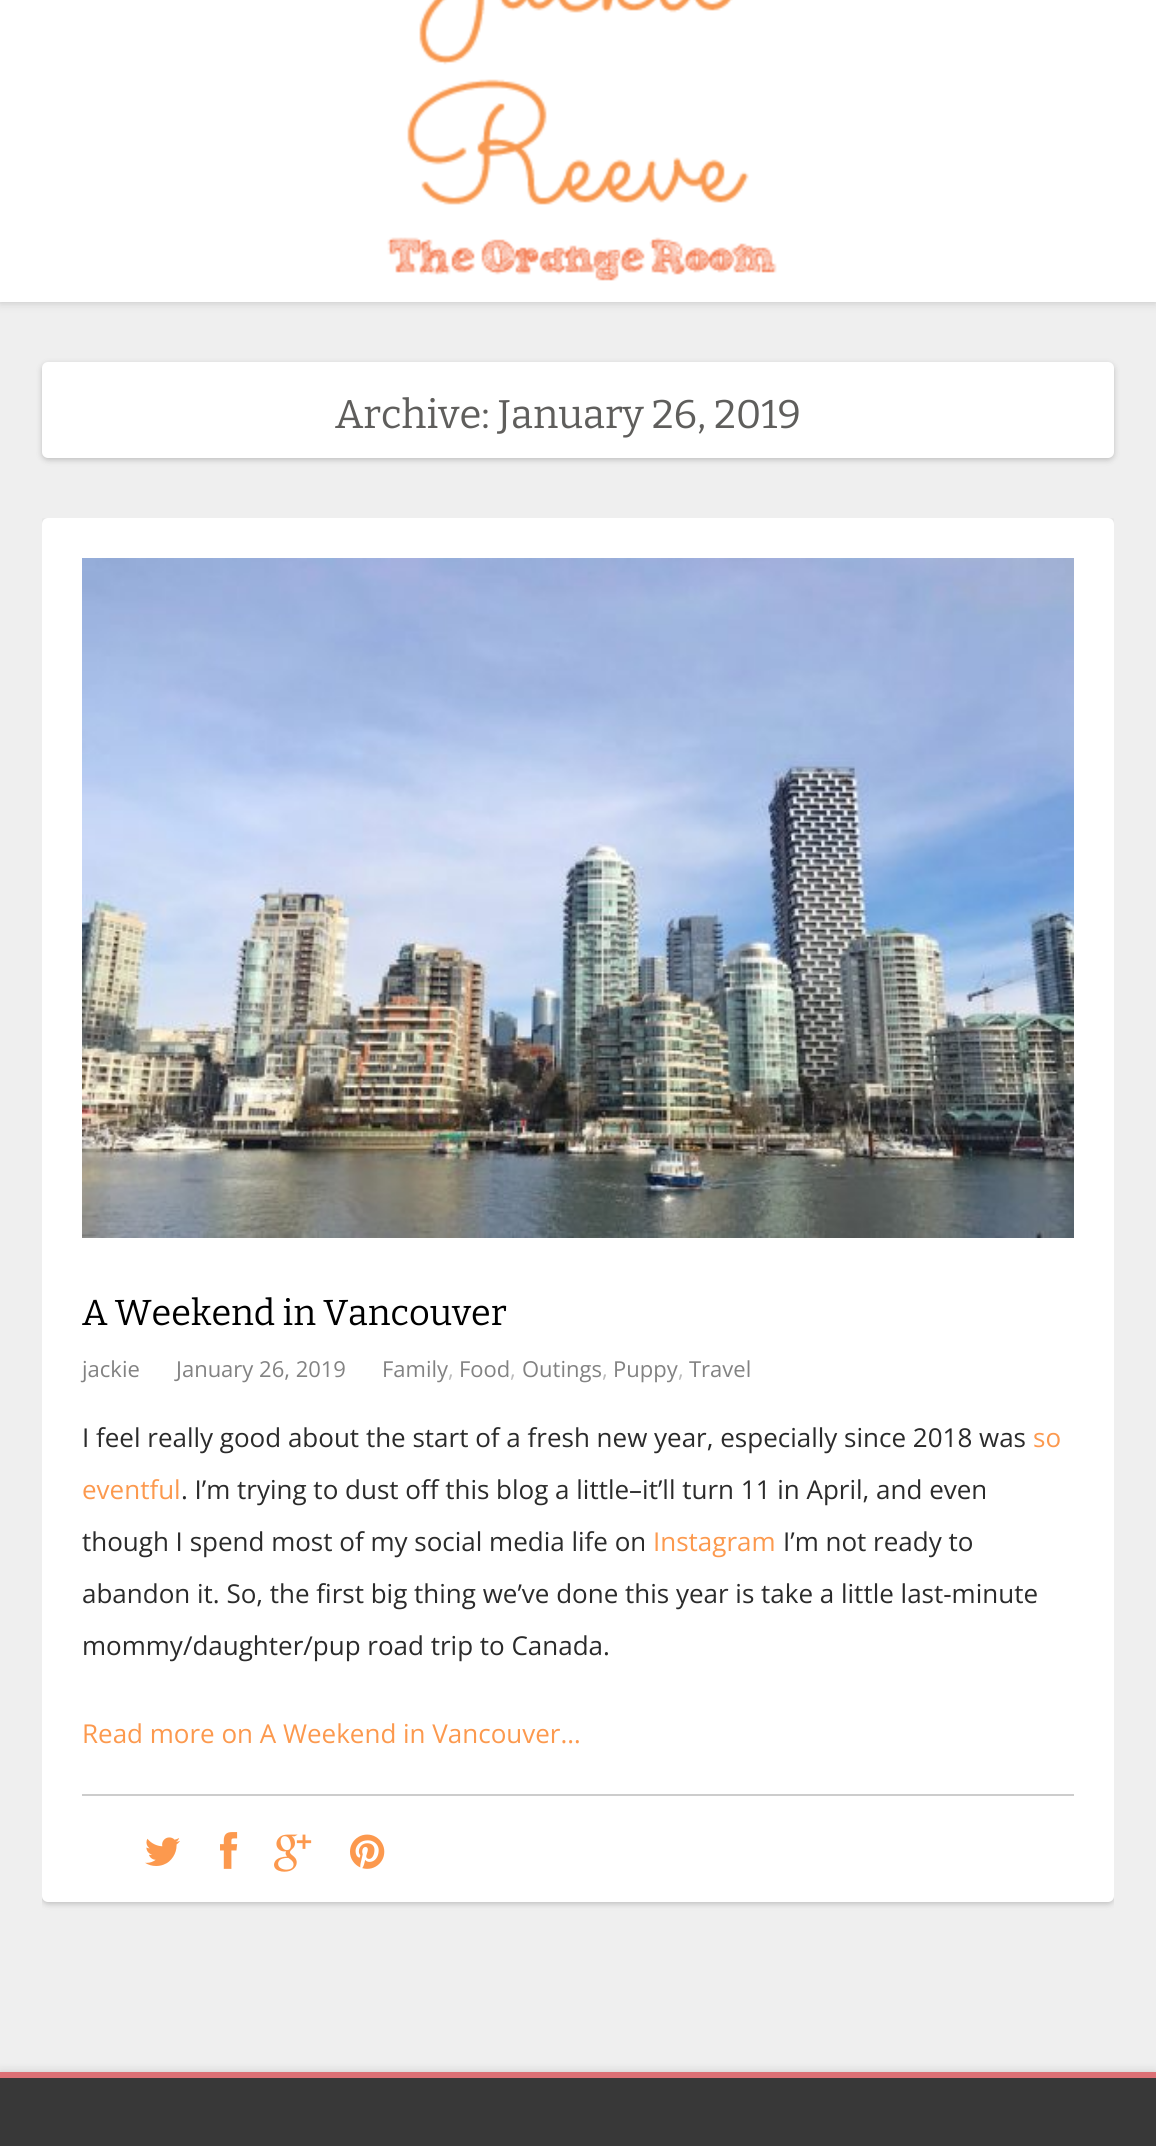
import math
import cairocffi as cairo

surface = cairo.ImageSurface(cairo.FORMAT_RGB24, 1156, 2146)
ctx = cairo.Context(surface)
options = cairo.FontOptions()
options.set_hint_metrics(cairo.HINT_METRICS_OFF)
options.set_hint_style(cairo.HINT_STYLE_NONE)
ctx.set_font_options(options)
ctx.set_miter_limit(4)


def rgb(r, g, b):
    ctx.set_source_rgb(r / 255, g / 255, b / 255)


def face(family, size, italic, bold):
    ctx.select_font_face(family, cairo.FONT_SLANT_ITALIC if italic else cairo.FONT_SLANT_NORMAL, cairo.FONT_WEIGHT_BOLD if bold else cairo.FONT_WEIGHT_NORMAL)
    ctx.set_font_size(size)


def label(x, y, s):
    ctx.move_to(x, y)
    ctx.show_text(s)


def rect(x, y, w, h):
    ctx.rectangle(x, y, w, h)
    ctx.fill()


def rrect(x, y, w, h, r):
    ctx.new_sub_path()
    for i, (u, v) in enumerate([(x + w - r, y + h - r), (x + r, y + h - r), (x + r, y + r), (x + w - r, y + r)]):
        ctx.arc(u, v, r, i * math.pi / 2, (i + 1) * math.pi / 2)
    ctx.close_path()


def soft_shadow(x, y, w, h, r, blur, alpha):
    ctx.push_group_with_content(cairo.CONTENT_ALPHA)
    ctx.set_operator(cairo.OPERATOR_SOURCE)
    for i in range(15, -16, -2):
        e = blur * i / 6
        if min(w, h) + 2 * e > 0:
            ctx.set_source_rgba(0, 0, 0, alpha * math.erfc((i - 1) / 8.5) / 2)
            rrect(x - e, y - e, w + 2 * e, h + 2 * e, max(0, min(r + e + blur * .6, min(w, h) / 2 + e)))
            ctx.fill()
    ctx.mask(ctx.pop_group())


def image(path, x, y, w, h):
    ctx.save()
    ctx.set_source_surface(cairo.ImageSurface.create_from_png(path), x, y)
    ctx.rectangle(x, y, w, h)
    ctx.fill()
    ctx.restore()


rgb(239, 239, 239)
ctx.paint()
rgb(0, 0, 0)
soft_shadow(0, -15, 1156, 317, 0, 5, 0.2)
rgb(255, 255, 255)
rect(0, 0, 1156, 302)
image('image0.png', 387, 0, 390, 281)
rgb(0, 0, 0)
soft_shadow(42, 364, 1072, 96, 6, 3, 0.2)
rgb(255, 255, 255)
rrect(42, 362, 1072, 96, 6)
ctx.fill()
face('Bitter', 40, 0, 0)
rgb(95, 94, 92)
label(335, 428, 'Archive: January 26, 2019')
ctx.save()
ctx.rectangle(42, 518, 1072, 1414)
ctx.clip()
rgb(0, 0, 0)
soft_shadow(42, 520, 1072, 1384, 6, 3, 0.2)
ctx.restore()
rgb(255, 255, 255)
rrect(42, 518, 1072, 1384, 6)
ctx.fill()
image('image1.png', 82, 558, 992, 680)
face('Bitter', 36, 0, 0)
rgb(0, 0, 0)
label(82, 1325, 'A Weekend in Vancouver')
face('Open Sans', 22, 0, 0)
rgb(130, 130, 130)
label(82, 1377, 'jackie')
label(176, 1377, 'January 26, 2019')
label(382, 1377, 'Family')
rgb(187, 187, 187)
label(448, 1377, ',')
rgb(130, 130, 130)
label(459, 1377, 'Food')
rgb(187, 187, 187)
label(510, 1377, ',')
rgb(130, 130, 130)
label(522, 1377, 'Outings')
rgb(187, 187, 187)
label(602, 1377, ',')
rgb(130, 130, 130)
label(613, 1377, 'Puppy')
rgb(187, 187, 187)
label(678, 1377, ',')
rgb(130, 130, 130)
label(689, 1377, 'Travel')
face('Open Sans', 26, 0, 0)
rgb(43, 43, 43)
label(82, 1447, 'I feel really good about the start of a fresh new year, especially since 2018 was')
rgb(252, 153, 78)
label(1033, 1447, 'so')
label(82, 1499, 'eventful')
rgb(43, 43, 43)
label(181, 1499, '. I’m trying to dust off this blog a little–it’ll turn 11 in April, and even')
label(82, 1551, 'though I spend most of my social media life on')
rgb(252, 153, 78)
label(653, 1551, 'Instagram')
rgb(43, 43, 43)
label(783, 1551, 'I’m not ready to')
label(82, 1603, 'abandon it. So, the first big thing we’ve done this year is take a little last-minute')
label(82, 1655, 'mommy/daughter/pup road trip to Canada.')
rgb(252, 153, 78)
label(82, 1743, 'Read more on A Weekend in Vancouver…')
rgb(204, 204, 204)
rect(82, 1794, 992, 2)
image('image2.png', 145, 1837, 35, 29)
image('image3.png', 220, 1832, 18, 37)
image('image4.png', 274, 1834, 38, 38)
image('image5.png', 350, 1834, 35, 35)
rgb(0, 0, 0)
soft_shadow(0, 2072, 1156, 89, 0, 5, 0.15)
rgb(56, 56, 56)
rect(0, 2078, 1156, 68)
rgb(220, 112, 117)
rect(0, 2072, 1156, 6)
surface.write_to_png('render.png')
